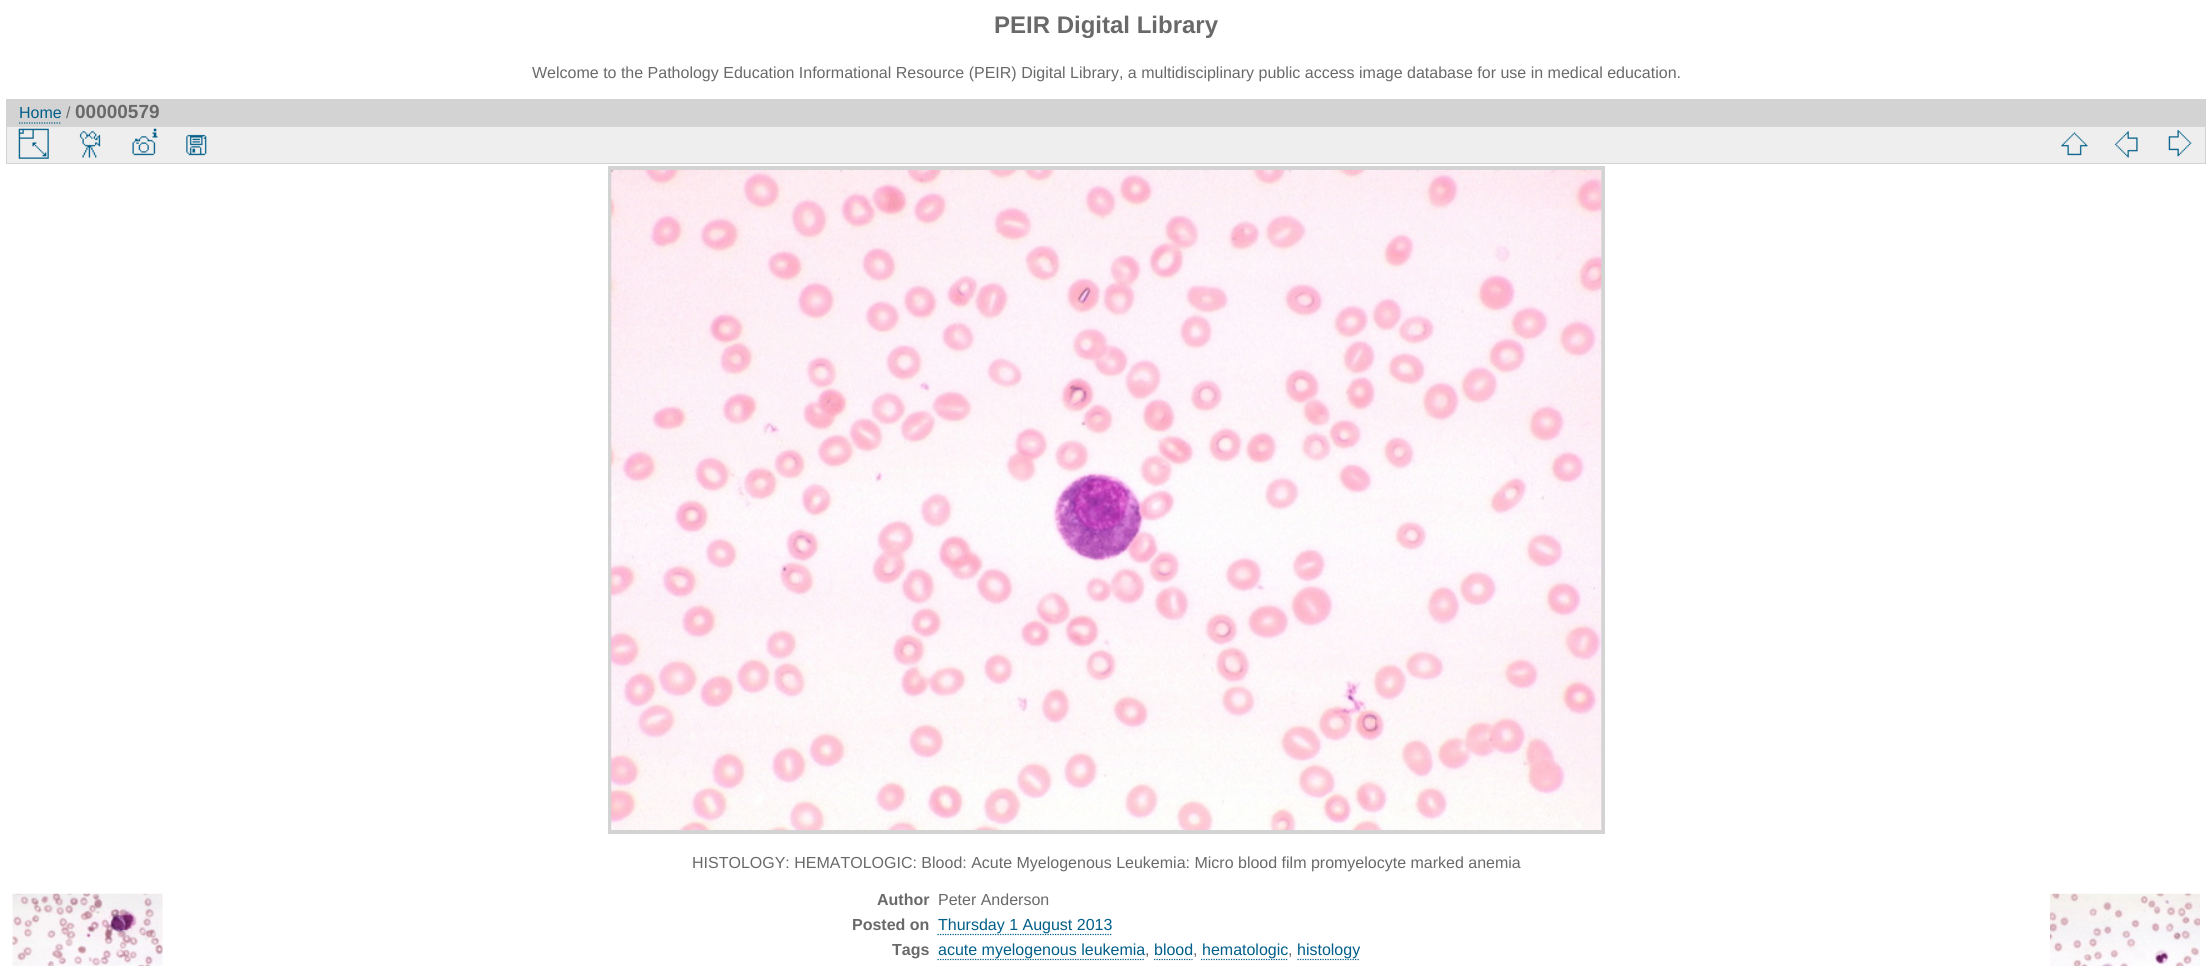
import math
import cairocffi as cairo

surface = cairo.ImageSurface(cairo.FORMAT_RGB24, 2212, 966)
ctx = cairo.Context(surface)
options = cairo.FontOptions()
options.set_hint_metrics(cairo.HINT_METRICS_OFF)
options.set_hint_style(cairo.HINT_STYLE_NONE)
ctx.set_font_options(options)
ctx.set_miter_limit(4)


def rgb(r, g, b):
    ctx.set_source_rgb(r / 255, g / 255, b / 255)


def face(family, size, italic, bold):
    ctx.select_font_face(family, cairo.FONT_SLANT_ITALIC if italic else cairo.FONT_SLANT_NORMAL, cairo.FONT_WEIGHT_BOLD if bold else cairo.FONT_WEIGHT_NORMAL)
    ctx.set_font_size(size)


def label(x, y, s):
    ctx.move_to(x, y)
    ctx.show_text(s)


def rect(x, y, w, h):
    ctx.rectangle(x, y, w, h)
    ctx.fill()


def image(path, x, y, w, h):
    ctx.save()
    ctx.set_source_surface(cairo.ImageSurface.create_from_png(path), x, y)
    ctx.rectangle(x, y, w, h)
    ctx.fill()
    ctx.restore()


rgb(255, 255, 255)
ctx.paint()
face('Liberation Sans', 24, 0, 1)
rgb(105, 105, 105)
label(994, 33, 'PEIR Digital Library')
face('Liberation Sans', 16, 0, 0)
label(532, 78, 'Welcome to the Pathology Education Informational Resource (PEIR) Digital Library, a multidisciplinary public access image database for use in medical education.')
rgb(211, 211, 211)
rect(6, 99, 2200, 27)
rgb(0, 94, 137)
label(19, 118, 'Home')
ctx.new_path()
ctx.move_to(19, 123)
ctx.line_to(61, 123)
ctx.set_line_width(1.2)
ctx.set_dash([1.25, 1.25])
ctx.stroke()
rgb(105, 105, 105)
label(66, 118, '/')
face('Liberation Sans', 19, 0, 1)
label(75, 118, '00000579')
rgb(238, 238, 238)
ctx.rectangle(6.5, 126.5, 2199, 37)
ctx.fill_preserve()
rgb(211, 211, 211)
ctx.set_line_width(1)
ctx.set_dash([])
ctx.stroke()
image('image0.png', 18, 128, 31, 31)
image('image1.png', 79, 131, 22, 27)
image('image2.png', 132, 128, 26, 28)
image('image3.png', 186, 134, 21, 22)
image('image4.png', 2061, 132, 27, 24)
image('image5.png', 2114, 131, 24, 27)
image('image6.png', 2168, 129, 24, 28)
ctx.rectangle(610, 168, 993, 664)
ctx.set_line_width(4)
ctx.stroke()
image('image7.png', 611, 170, 991, 660)
face('Liberation Sans', 16, 0, 0)
rgb(105, 105, 105)
label(692, 868, 'HISTOLOGY: HEMATOLOGIC: Blood: Acute Myelogenous Leukemia: Micro blood film promyelocyte marked anemia')
image('image8.png', 12, 893, 151, 73)
image('image9.png', 2050, 893, 150, 73)
face('Liberation Sans', 16, 0, 1)
label(877, 905, 'Author')
face('Liberation Sans', 16, 0, 0)
label(938, 905, 'Peter Anderson')
face('Liberation Sans', 16, 0, 1)
label(852, 930, 'Posted on')
ctx.new_path()
ctx.move_to(937.5, 934.5)
ctx.line_to(1112.5, 934.5)
rgb(0, 94, 137)
ctx.set_line_width(1.2)
ctx.set_dash([1.25, 1.25])
ctx.stroke()
face('Liberation Sans', 16, 0, 0)
label(938, 930, 'Thursday 1 August 2013')
face('Liberation Sans', 16, 0, 1)
rgb(105, 105, 105)
label(892, 955, 'Tags')
ctx.new_path()
ctx.move_to(937.5, 959.5)
ctx.line_to(1145, 959.5)
rgb(0, 94, 137)
ctx.stroke()
face('Liberation Sans', 16, 0, 0)
label(938, 955, 'acute myelogenous leukemia')
rgb(105, 105, 105)
label(1145, 955, ',')
rgb(0, 94, 137)
label(1154, 955, 'blood')
ctx.new_path()
ctx.move_to(1154, 959.5)
ctx.line_to(1192.5, 959.5)
ctx.stroke()
rgb(105, 105, 105)
label(1193, 955, ',')
ctx.new_path()
ctx.move_to(1201, 959.5)
ctx.line_to(1287.5, 959.5)
rgb(0, 94, 137)
ctx.stroke()
label(1202, 955, 'hematologic')
rgb(105, 105, 105)
label(1288, 955, ',')
ctx.new_path()
ctx.move_to(1297.5, 959.5)
ctx.line_to(1360, 959.5)
rgb(0, 94, 137)
ctx.stroke()
label(1297, 955, 'histology')
surface.write_to_png('render.png')
